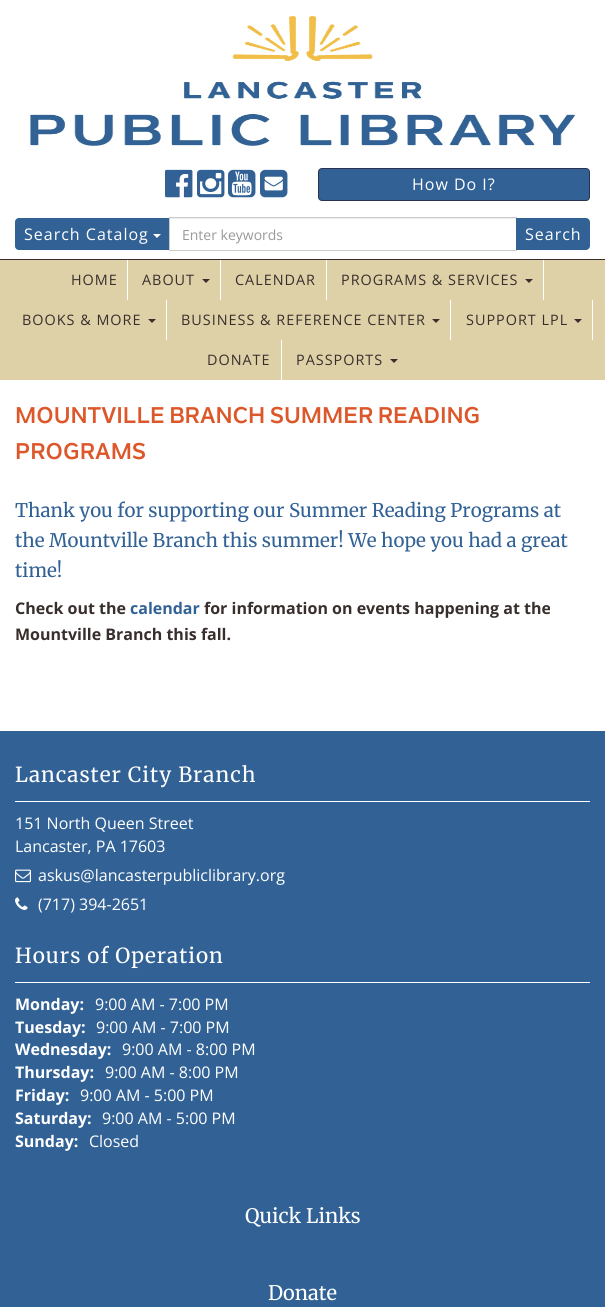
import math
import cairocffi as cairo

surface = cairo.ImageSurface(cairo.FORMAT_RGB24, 605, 1307)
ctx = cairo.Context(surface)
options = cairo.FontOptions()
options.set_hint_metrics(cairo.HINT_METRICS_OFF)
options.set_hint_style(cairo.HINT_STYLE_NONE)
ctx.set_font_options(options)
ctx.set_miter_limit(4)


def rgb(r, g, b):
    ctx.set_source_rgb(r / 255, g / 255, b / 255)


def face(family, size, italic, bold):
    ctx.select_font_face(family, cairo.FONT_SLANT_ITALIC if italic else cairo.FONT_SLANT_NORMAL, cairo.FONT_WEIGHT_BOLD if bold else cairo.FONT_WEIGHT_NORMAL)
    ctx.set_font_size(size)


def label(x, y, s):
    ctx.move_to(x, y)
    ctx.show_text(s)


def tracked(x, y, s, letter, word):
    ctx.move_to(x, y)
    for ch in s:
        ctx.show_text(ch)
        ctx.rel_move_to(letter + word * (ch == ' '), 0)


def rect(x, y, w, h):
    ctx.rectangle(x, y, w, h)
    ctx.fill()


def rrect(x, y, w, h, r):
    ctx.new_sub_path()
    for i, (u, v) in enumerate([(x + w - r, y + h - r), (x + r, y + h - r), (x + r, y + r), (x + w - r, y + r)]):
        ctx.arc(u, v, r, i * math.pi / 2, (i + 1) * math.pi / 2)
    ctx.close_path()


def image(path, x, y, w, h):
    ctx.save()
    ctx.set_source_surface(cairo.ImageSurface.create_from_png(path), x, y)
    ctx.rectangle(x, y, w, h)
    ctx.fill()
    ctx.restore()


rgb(50, 98, 149)
ctx.paint()
rgb(255, 255, 255)
rect(0, 0, 605, 259)
image('image0.png', 30, 16, 545, 130)
image('image1.png', 165, 169, 28, 29)
image('image2.png', 197, 169, 28, 29)
image('image3.png', 228, 169, 28, 29)
image('image4.png', 260, 169, 28, 29)
rgb(50, 98, 149)
rrect(318.5, 168.5, 271, 32, 3.5)
ctx.fill_preserve()
rgb(42, 50, 79)
ctx.set_line_width(1)
ctx.stroke()
face('Open Sans', 16, 0, 0)
rgb(255, 255, 255)
tracked(412, 190, 'How Do I?', 1, 0)
rgb(50, 98, 149)
ctx.new_path()
ctx.move_to(19, 218.5)
ctx.line_to(169.5, 218.5)
ctx.line_to(169.5, 249.5)
ctx.line_to(19, 249.5)
ctx.curve_to(17, 249.5, 15.5, 248, 15.5, 246)
ctx.line_to(15.5, 222)
ctx.curve_to(15.5, 220, 17, 218.5, 19, 218.5)
ctx.close_path()
ctx.fill_preserve()
ctx.stroke()
rgb(255, 255, 255)
tracked(24, 240, 'Search Catalog', 1, 0)
ctx.new_path()
ctx.move_to(153, 234)
ctx.line_to(161, 234)
ctx.line_to(157, 238)
ctx.close_path()
ctx.fill()
rgb(236, 236, 236)
rect(170, 218, 346, 1)
ctx.rectangle(169.5, 217.5, 347, 33)
rgb(204, 204, 204)
ctx.stroke()
face('Open Sans', 14, 0, 0)
rgb(153, 153, 153)
label(182, 240, 'Enter keywords')
rgb(50, 98, 149)
ctx.new_path()
ctx.move_to(516, 218)
ctx.line_to(586, 218)
ctx.curve_to(588, 218, 590, 220, 590, 222)
ctx.line_to(590, 246)
ctx.curve_to(590, 248, 588, 250, 586, 250)
ctx.line_to(516, 250)
ctx.close_path()
ctx.fill()
face('Open Sans', 16, 0, 0)
rgb(255, 255, 255)
tracked(525, 240, 'Search', 1, 0)
rgb(223, 209, 167)
rect(0, 260, 605, 120)
rgb(56, 47, 45)
rect(0, 259, 605, 1)
rgb(255, 255, 255)
rect(127, 260, 1, 40)
face('Open Sans', 14.4, 0, 0)
rgb(56, 47, 45)
tracked(71, 285, 'HOME', 1, 0)
rgb(255, 255, 255)
rect(220, 260, 1, 40)
rgb(56, 47, 45)
tracked(142, 285, 'ABOUT', 1, 0)
ctx.new_path()
ctx.move_to(202, 279)
ctx.line_to(210, 279)
ctx.line_to(206, 283)
ctx.close_path()
ctx.fill()
rgb(255, 255, 255)
rect(326, 260, 1, 40)
rgb(56, 47, 45)
tracked(235, 285, 'CALENDAR', 1, 0)
rgb(255, 255, 255)
rect(543, 260, 1, 40)
rgb(56, 47, 45)
tracked(341, 285, 'PROGRAMS & SERVICES', 1, 0)
ctx.new_path()
ctx.move_to(525, 279)
ctx.line_to(533, 279)
ctx.line_to(529, 283)
ctx.close_path()
ctx.fill()
rgb(255, 255, 255)
rect(166, 300, 1, 40)
rgb(56, 47, 45)
tracked(22, 325, 'BOOKS & MORE', 1, 0)
ctx.new_path()
ctx.move_to(148, 319)
ctx.line_to(156, 319)
ctx.line_to(152, 323)
ctx.close_path()
ctx.fill()
rgb(255, 255, 255)
rect(450, 300, 1, 40)
rgb(56, 47, 45)
tracked(181, 325, 'BUSINESS & REFERENCE CENTER', 1, 0)
ctx.new_path()
ctx.move_to(432, 319)
ctx.line_to(440, 319)
ctx.line_to(436, 323)
ctx.close_path()
ctx.fill()
rgb(255, 255, 255)
rect(592, 300, 1, 40)
rgb(56, 47, 45)
tracked(466, 325, 'SUPPORT LPL', 1, 0)
ctx.new_path()
ctx.move_to(574, 319)
ctx.line_to(582, 319)
ctx.line_to(578, 323)
ctx.close_path()
ctx.fill()
rgb(255, 255, 255)
rect(281, 340, 1, 40)
rgb(56, 47, 45)
tracked(207, 365, 'DONATE', 1, 0)
tracked(296, 365, 'PASSPORTS', 1, 0)
ctx.new_path()
ctx.move_to(390, 359)
ctx.line_to(398, 359)
ctx.line_to(394, 363)
ctx.close_path()
ctx.fill()
rgb(255, 255, 255)
rect(0, 380, 605, 351)
face('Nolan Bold', 22.5, 0, 0)
rgb(220, 88, 42)
label(15, 423, 'MOUNTVILLE BRANCH SUMMER READING')
label(15, 459, 'PROGRAMS')
face('Merriweather', 18.75, 0, 0)
rgb(50, 98, 149)
label(15, 517, 'Thank you for supporting our Summer Reading Programs at')
label(15, 547, 'the Mountville Branch this summer! We hope you had a great')
label(15, 577, 'time!')
face('Open Sans', 16, 0, 1)
rgb(56, 47, 45)
label(15, 614, 'Check out the')
rgb(50, 98, 149)
label(130, 614, 'calendar')
rgb(56, 47, 45)
label(204, 614, 'for information on events happening at the')
label(15, 640, 'Mountville Branch this fall.')
rgb(255, 255, 255)
rect(15, 801, 575, 1)
face('Merriweather', 20.75, 0, 0)
tracked(15, 782, 'Lancaster City Branch', 1, 0)
face('Open Sans', 16, 0, 0)
label(15, 829, '151 North Queen Street')
label(15, 852, 'Lancaster, PA 17603')
image('image5.png', 15, 869, 16, 14)
label(38, 881, 'askus@lancasterpubliclibrary.org')
image('image6.png', 15, 897, 13, 13)
label(38, 910, '(717) 394-2651')
rect(15, 982, 575, 1)
face('Merriweather', 20.75, 0, 0)
tracked(15, 963, 'Hours of Operation', 1, 0)
face('Open Sans', 16, 0, 1)
label(15, 1010, 'Monday:')
face('Open Sans', 16, 0, 0)
label(95, 1010, '9:00 AM - 7:00 PM')
face('Open Sans', 16, 0, 1)
label(15, 1033, 'Tuesday:')
face('Open Sans', 16, 0, 0)
label(96, 1033, '9:00 AM - 7:00 PM')
face('Open Sans', 16, 0, 1)
label(15, 1055, 'Wednesday:')
face('Open Sans', 16, 0, 0)
label(122, 1055, '9:00 AM - 8:00 PM')
face('Open Sans', 16, 0, 1)
label(15, 1078, 'Thursday:')
face('Open Sans', 16, 0, 0)
label(105, 1078, '9:00 AM - 8:00 PM')
face('Open Sans', 16, 0, 1)
label(15, 1101, 'Friday:')
face('Open Sans', 16, 0, 0)
label(80, 1101, '9:00 AM - 5:00 PM')
face('Open Sans', 16, 0, 1)
label(15, 1124, 'Saturday:')
face('Open Sans', 16, 0, 0)
label(102, 1124, '9:00 AM - 5:00 PM')
face('Open Sans', 16, 0, 1)
label(15, 1147, 'Sunday:')
face('Open Sans', 16, 0, 0)
label(89, 1147, 'Closed')
face('Merriweather', 20, 0, 0)
label(245, 1223, 'Quick Links')
label(268, 1300, 'Donate')
surface.write_to_png('render.png')
